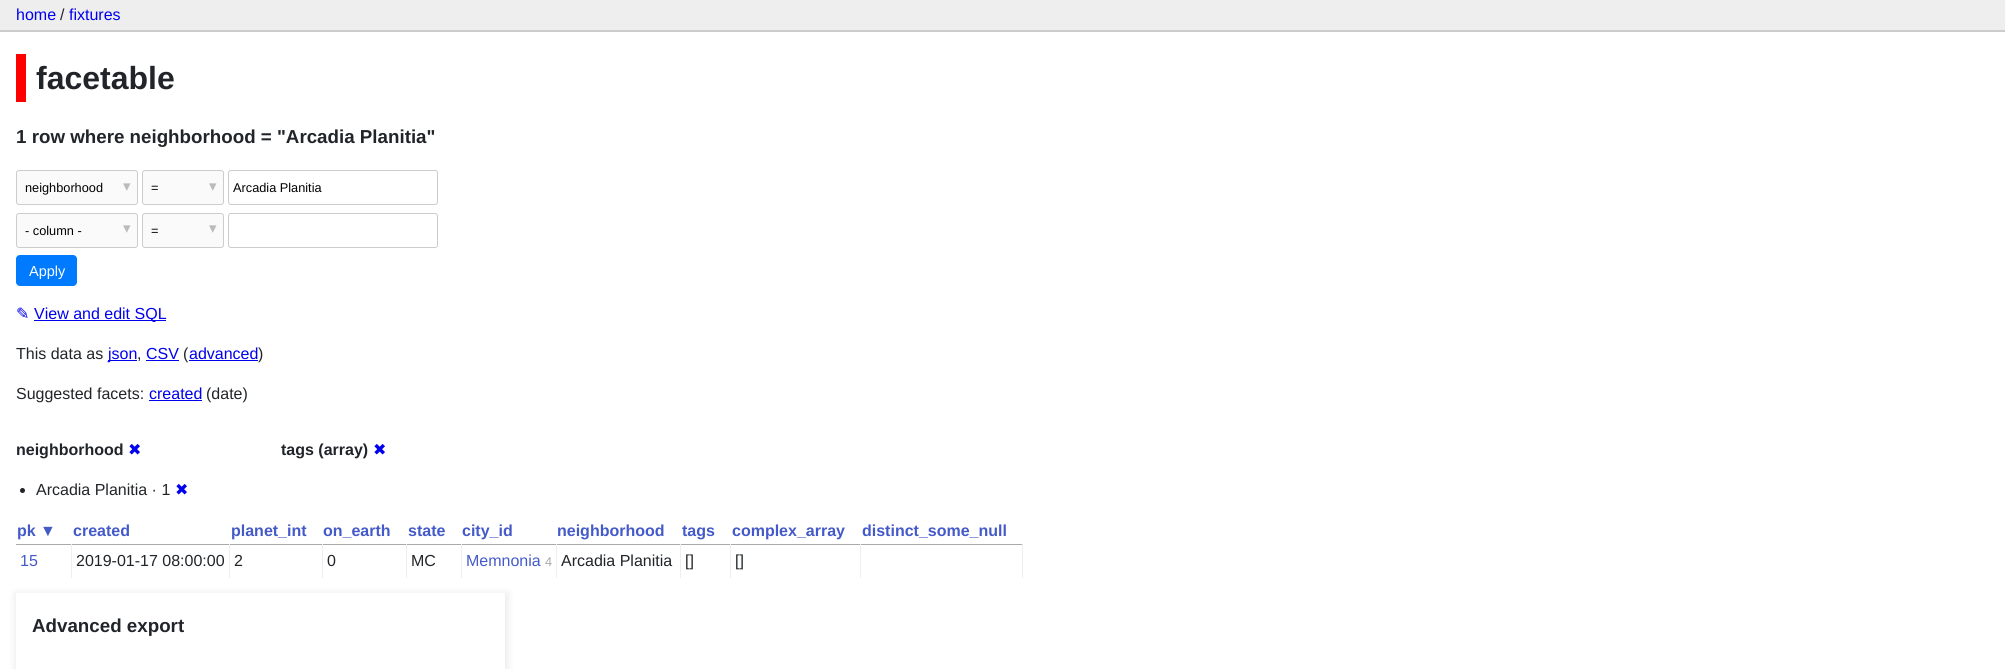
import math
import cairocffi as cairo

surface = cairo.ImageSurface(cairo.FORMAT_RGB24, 2005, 669)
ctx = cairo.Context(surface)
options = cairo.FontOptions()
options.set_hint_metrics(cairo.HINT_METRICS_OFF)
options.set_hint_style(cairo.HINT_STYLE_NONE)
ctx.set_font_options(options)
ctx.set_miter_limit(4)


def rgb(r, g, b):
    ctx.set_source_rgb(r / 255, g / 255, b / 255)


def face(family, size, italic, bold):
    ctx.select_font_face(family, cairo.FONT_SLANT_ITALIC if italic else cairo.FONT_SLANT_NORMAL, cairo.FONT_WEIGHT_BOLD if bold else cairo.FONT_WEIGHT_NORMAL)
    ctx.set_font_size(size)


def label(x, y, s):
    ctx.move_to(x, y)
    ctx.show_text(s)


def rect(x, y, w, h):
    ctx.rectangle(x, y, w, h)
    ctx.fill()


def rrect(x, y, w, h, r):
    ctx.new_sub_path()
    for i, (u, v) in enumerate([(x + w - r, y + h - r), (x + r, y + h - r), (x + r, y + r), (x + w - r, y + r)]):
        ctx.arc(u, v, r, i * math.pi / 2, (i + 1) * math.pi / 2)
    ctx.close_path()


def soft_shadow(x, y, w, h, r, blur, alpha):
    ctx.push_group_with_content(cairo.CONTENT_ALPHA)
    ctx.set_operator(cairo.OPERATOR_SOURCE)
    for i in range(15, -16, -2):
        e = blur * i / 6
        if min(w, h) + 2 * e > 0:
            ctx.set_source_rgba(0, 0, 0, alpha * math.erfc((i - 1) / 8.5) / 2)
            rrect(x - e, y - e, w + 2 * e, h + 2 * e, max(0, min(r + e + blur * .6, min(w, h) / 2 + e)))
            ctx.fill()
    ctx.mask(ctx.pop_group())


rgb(255, 255, 255)
ctx.paint()
rgb(238, 238, 238)
rect(0, 0, 2005, 30)
rgb(204, 204, 204)
rect(0, 30, 2005, 2)
face('Liberation Sans', 16, 0, 0)
rgb(0, 0, 238)
label(16, 20, 'home')
rgb(33, 37, 41)
label(60, 20, '/')
rgb(0, 0, 238)
label(69, 20, 'fixtures')
rgb(255, 0, 0)
rect(16, 54, 10, 48)
face('Liberation Sans', 32, 0, 1)
rgb(33, 37, 41)
label(36, 89, 'facetable')
face('Liberation Sans', 18.75, 0, 1)
label(16, 143, '1 row where neighborhood = "Arcadia Planitia"')
rgb(250, 250, 250)
rrect(16.5, 170.5, 121, 34, 2.5)
ctx.fill_preserve()
rgb(204, 204, 204)
ctx.set_line_width(1)
ctx.stroke()
face('Liberation Sans', 12.75, 0, 0)
rgb(0, 0, 0)
label(25, 192, 'neighborhood')
face('DejaVu Sans', 15, 0, 0)
rgb(187, 187, 187)
label(123, 191, '▾')
rgb(250, 250, 250)
rrect(142.5, 170.5, 81, 34, 2.5)
ctx.fill_preserve()
rgb(204, 204, 204)
ctx.stroke()
face('Liberation Sans', 12.75, 0, 0)
rgb(0, 0, 0)
label(151, 192, '=')
face('DejaVu Sans', 15, 0, 0)
rgb(187, 187, 187)
label(209, 191, '▾')
rrect(228.5, 170.5, 209, 34, 2.5)
rgb(204, 204, 204)
ctx.stroke()
face('Liberation Sans', 12.75, 0, 0)
rgb(0, 0, 0)
label(233, 192, 'Arcadia Planitia')
rgb(250, 250, 250)
rrect(16.5, 213.5, 121, 34, 2.5)
ctx.fill_preserve()
rgb(204, 204, 204)
ctx.stroke()
rgb(0, 0, 0)
label(25, 235, '- column -')
face('DejaVu Sans', 15, 0, 0)
rgb(187, 187, 187)
label(123, 233, '▾')
rgb(250, 250, 250)
rrect(142.5, 213.5, 81, 34, 2.5)
ctx.fill_preserve()
rgb(204, 204, 204)
ctx.stroke()
face('Liberation Sans', 12.75, 0, 0)
rgb(0, 0, 0)
label(151, 235, '=')
face('DejaVu Sans', 15, 0, 0)
rgb(187, 187, 187)
label(209, 233, '▾')
rrect(228.5, 213.5, 209, 34, 2.5)
rgb(204, 204, 204)
ctx.stroke()
rgb(0, 123, 255)
rrect(16.5, 255.5, 60, 30, 3.5)
ctx.fill_preserve()
ctx.stroke()
face('Liberation Sans', 14.5, 0, 0)
rgb(255, 255, 255)
label(29, 276, 'Apply')
face('DejaVu Sans', 16, 0, 0)
rgb(0, 0, 238)
label(16, 319, '✎')
rect(34, 320, 132, 1)
face('Liberation Sans', 16, 0, 0)
label(34, 319, 'View and edit SQL')
rgb(33, 37, 41)
label(16, 359, 'This data as')
rgb(0, 0, 238)
rect(108, 360, 29, 1)
label(108, 359, 'json')
rgb(33, 37, 41)
label(137, 359, ',')
rgb(0, 0, 238)
label(146, 359, 'CSV')
rect(146, 360, 33, 1)
rgb(33, 37, 41)
label(183, 359, '(')
rgb(0, 0, 238)
label(189, 359, 'advanced')
rect(189, 360, 69, 1)
rgb(33, 37, 41)
label(258, 359, ')')
label(16, 399, 'Suggested facets:')
rgb(0, 0, 238)
label(149, 399, 'created')
rect(149, 400, 53, 1)
rgb(33, 37, 41)
label(206, 399, '(date)')
face('Liberation Sans', 16, 0, 1)
label(16, 455, 'neighborhood')
face('DejaVu Sans', 16, 0, 0)
rgb(0, 0, 238)
label(128, 455, '✖')
rgb(33, 37, 41)
ctx.new_path()
ctx.arc(22.5, 490.5, 2.5, 0, 2 * math.pi)
ctx.fill()
face('Liberation Sans', 16, 0, 0)
label(36, 495, 'Arcadia Planitia · 1')
face('DejaVu Sans', 16, 0, 0)
rgb(0, 0, 238)
label(175, 495, '✖')
face('Liberation Sans', 16, 0, 1)
rgb(33, 37, 41)
label(281, 455, 'tags (array)')
face('DejaVu Sans', 16, 0, 0)
rgb(0, 0, 238)
label(373, 455, '✖')
face('Liberation Sans', 16, 0, 1)
rgb(68, 90, 200)
label(17, 536, 'pk ▼')
label(73, 536, 'created')
label(231, 536, 'planet_int')
label(323, 536, 'on_earth')
label(408, 536, 'state')
label(462, 536, 'city_id')
label(557, 536, 'neighborhood')
label(682, 536, 'tags')
label(732, 536, 'complex_array')
label(862, 536, 'distinct_some_null')
rgb(170, 170, 170)
rect(16, 544, 1007, 1)
rgb(238, 238, 238)
rect(1022, 544, 1, 34)
rect(71, 544, 1, 34)
face('Liberation Sans', 16, 0, 0)
rgb(68, 90, 200)
label(20, 566, '15')
rgb(238, 238, 238)
rect(229, 544, 1, 34)
rgb(33, 37, 41)
label(76, 566, '2019-01-17 08:00:00')
rgb(238, 238, 238)
rect(322, 544, 1, 34)
rgb(33, 37, 41)
label(234, 566, '2')
rgb(238, 238, 238)
rect(406, 544, 1, 34)
rgb(33, 37, 41)
label(327, 566, '0')
rgb(238, 238, 238)
rect(461, 544, 1, 34)
rgb(33, 37, 41)
label(411, 566, 'MC')
rgb(238, 238, 238)
rect(556, 544, 1, 34)
rgb(68, 90, 200)
label(466, 566, 'Memnonia')
face('Liberation Sans', 12.75, 0, 0)
rgb(170, 170, 170)
label(545, 566, '4')
rgb(238, 238, 238)
rect(680, 544, 1, 34)
face('Liberation Sans', 16, 0, 0)
rgb(33, 37, 41)
label(561, 566, 'Arcadia Planitia')
rgb(238, 238, 238)
rect(730, 544, 1, 34)
rgb(33, 37, 41)
label(685, 566, '[]')
rgb(238, 238, 238)
rect(860, 544, 1, 34)
rgb(33, 37, 41)
label(735, 566, '[]')
ctx.save()
ctx.set_fill_rule(cairo.FILL_RULE_EVEN_ODD)
ctx.new_path()
ctx.move_to(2, 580)
ctx.line_to(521, 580)
ctx.line_to(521, 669)
ctx.line_to(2, 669)
ctx.close_path()
ctx.move_to(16, 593)
ctx.line_to(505, 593)
ctx.line_to(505, 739)
ctx.line_to(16, 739)
ctx.close_path()
ctx.clip()
rgb(0, 0, 0)
soft_shadow(15, 593, 493, 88, 0, 4, 0.08)
ctx.restore()
face('Liberation Sans', 18.75, 0, 1)
label(32, 632, 'Advanced export')
surface.write_to_png('render.png')
